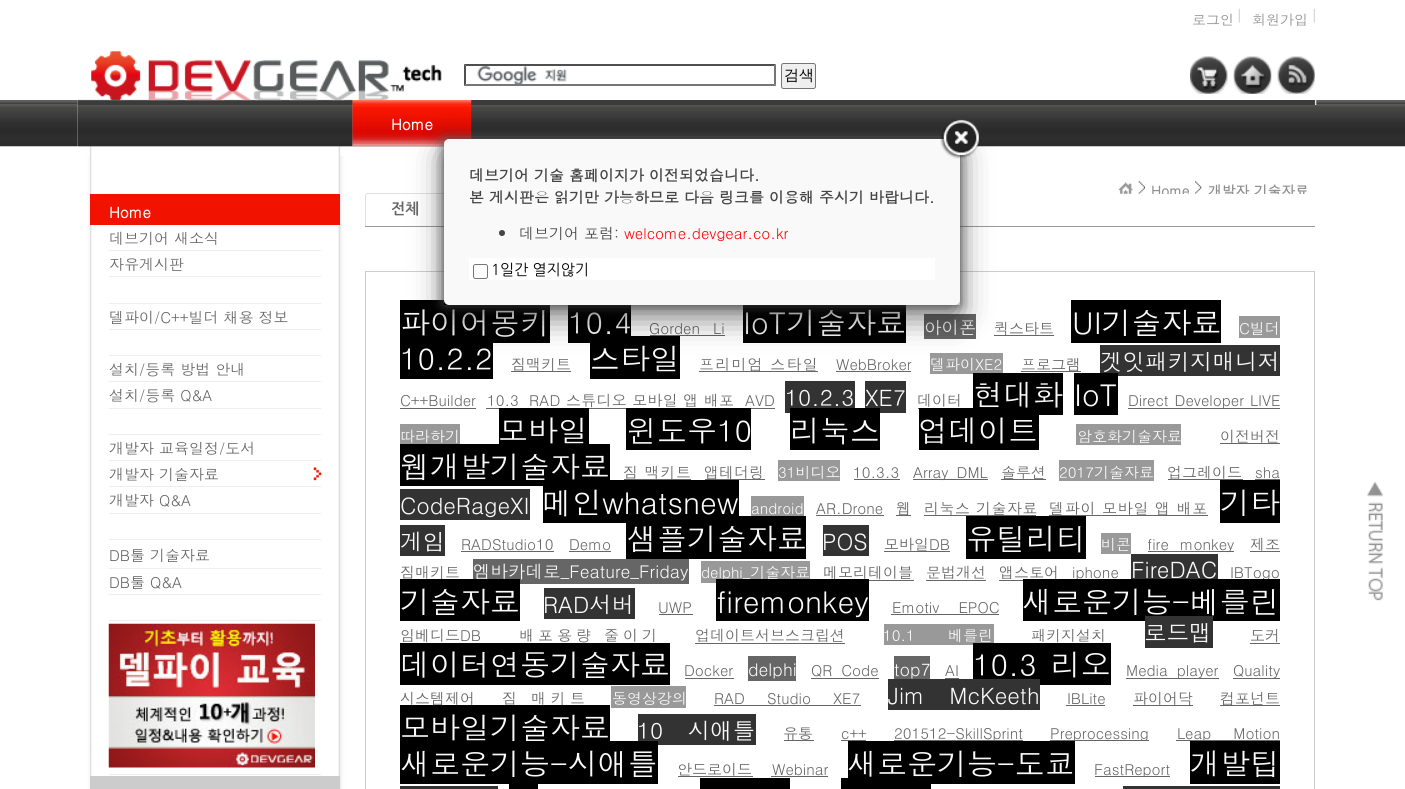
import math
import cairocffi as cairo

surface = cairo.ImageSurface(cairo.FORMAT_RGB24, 1405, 789)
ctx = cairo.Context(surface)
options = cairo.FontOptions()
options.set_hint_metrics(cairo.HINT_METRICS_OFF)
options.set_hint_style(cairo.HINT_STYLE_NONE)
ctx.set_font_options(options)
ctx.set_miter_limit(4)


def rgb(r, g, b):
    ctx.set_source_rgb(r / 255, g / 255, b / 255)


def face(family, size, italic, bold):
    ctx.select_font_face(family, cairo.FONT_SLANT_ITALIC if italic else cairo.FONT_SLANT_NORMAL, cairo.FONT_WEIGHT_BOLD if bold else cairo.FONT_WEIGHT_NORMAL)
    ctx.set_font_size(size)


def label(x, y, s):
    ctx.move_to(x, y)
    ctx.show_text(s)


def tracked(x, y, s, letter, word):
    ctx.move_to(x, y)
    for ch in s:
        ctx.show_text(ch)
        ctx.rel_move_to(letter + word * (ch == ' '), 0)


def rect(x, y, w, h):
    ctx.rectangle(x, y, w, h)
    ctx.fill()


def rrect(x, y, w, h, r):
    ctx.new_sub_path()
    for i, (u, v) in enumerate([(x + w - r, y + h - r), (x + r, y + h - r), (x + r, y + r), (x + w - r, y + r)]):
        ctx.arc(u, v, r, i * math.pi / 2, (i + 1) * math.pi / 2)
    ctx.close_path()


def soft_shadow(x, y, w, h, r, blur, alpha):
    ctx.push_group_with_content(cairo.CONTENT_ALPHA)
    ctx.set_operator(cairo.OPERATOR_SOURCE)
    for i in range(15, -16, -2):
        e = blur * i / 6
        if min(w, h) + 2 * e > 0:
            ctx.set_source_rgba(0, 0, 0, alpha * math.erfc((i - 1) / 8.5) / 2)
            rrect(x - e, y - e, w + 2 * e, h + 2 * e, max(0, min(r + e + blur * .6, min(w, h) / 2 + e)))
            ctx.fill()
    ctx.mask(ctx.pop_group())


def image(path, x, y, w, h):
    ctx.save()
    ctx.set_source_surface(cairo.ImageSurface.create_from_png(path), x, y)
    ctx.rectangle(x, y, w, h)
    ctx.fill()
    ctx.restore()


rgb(255, 255, 255)
ctx.paint()
image('image0.png', 0, 100, 1405, 47)
image('image1.png', 77, 0, 276, 789)
image('image2.png', 352, 100, 965, 5)
image('image3.png', 77, 0, 276, 156)
image('image4.png', 91, 51, 351, 50)
face('Dotum', 14, 0, 0)
rgb(143, 143, 143)
label(1192, 25, '로그인')
image('image5.png', 1238, 8, 2, 15)
label(1252, 25, '회원가입')
image('image5.png', 1313, 8, 2, 15)
image('image6.png', 477, 66, 90, 18)
rgb(79, 79, 79)
ctx.new_path()
ctx.move_to(464, 64)
ctx.line_to(776, 64)
ctx.line_to(774, 66)
ctx.line_to(466, 66)
ctx.close_path()
ctx.fill()
rgb(118, 118, 118)
ctx.new_path()
ctx.move_to(776, 64)
ctx.line_to(776, 86)
ctx.line_to(774, 84)
ctx.line_to(774, 66)
ctx.close_path()
ctx.fill()
ctx.new_path()
ctx.move_to(776, 86)
ctx.line_to(464, 86)
ctx.line_to(466, 84)
ctx.line_to(774, 84)
ctx.close_path()
ctx.fill()
rgb(79, 79, 79)
ctx.new_path()
ctx.move_to(464, 86)
ctx.line_to(464, 64)
ctx.line_to(466, 66)
ctx.line_to(466, 84)
ctx.close_path()
ctx.fill()
rgb(239, 239, 239)
rrect(781.5, 63.5, 34, 25, 2)
ctx.fill_preserve()
rgb(118, 118, 118)
ctx.set_line_width(1)
ctx.stroke()
face('WenQuanYi Zen Hei Medium', 15, 0, 0)
rgb(0, 0, 0)
label(784, 80, '검색')
image('image7.png', 1190, 56, 38, 38)
image('image8.png', 1233, 56, 39, 38)
image('image9.png', 1277, 56, 38, 38)
image('image10.png', 352, 100, 120, 47)
face('Dotum', 15, 0, 1)
rgb(250, 250, 250)
label(391, 130, 'Home')
image('image11.png', 1118, 182, 15, 12)
image('image12.png', 1138, 181, 7, 13)
ctx.save()
ctx.rectangle(1056, 156, 259, 38)
ctx.clip()
face('Dotum', 13.75, 0, 1)
rgb(143, 143, 143)
label(1151, 196, 'Home')
ctx.restore()
image('image13.png', 1195, 181, 7, 13)
ctx.save()
ctx.rectangle(1056, 156, 259, 38)
ctx.clip()
face('Dotum', 13.75, 0, 1)
rgb(143, 143, 143)
label(1208, 196, '개발자 기술자료')
ctx.restore()
rgb(241, 19, 0)
rect(90, 194, 250, 31)
rgb(250, 250, 250)
label(109, 218, 'Home')
rgb(238, 238, 238)
rect(109, 250, 212, 1)
face('Dotum', 15, 0, 0)
rgb(102, 102, 102)
label(109, 244, '데브기어 새소식')
rgb(238, 238, 238)
rect(109, 276, 212, 1)
rgb(102, 102, 102)
label(109, 270, '자유게시판')
rgb(238, 238, 238)
rect(109, 303, 212, 1)
rect(109, 329, 212, 1)
rgb(102, 102, 102)
label(109, 323, '델파이/C++빌더 채용 정보')
rgb(238, 238, 238)
rect(109, 355, 212, 1)
rect(109, 381, 212, 1)
rgb(102, 102, 102)
label(109, 375, '설치/등록 방법 안내')
rgb(238, 238, 238)
rect(109, 408, 212, 1)
rgb(102, 102, 102)
label(109, 401, '설치/등록 Q&A')
rgb(238, 238, 238)
rect(109, 434, 212, 1)
rect(109, 460, 212, 1)
rgb(102, 102, 102)
label(109, 454, '개발자 교육일정/도서')
image('image14.png', 313, 467, 9, 14)
rgb(238, 238, 238)
rect(109, 486, 212, 1)
rgb(102, 102, 102)
label(109, 480, '개발자 기술자료')
rgb(238, 238, 238)
rect(109, 539, 212, 1)
rgb(102, 102, 102)
label(109, 506, '개발자 Q&A')
rgb(238, 238, 238)
rect(109, 513, 212, 1)
rect(109, 568, 212, 1)
rgb(102, 102, 102)
label(109, 561, 'DB툴 기술자료')
rgb(238, 238, 238)
rect(109, 620, 212, 1)
rgb(102, 102, 102)
label(109, 588, 'DB툴 Q&A')
rgb(238, 238, 238)
rect(109, 594, 212, 1)
rect(109, 774, 212, 1)
image('image15.png', 108, 623, 207, 145)
rgb(204, 204, 204)
rect(90, 776, 250, 13)
rgb(153, 153, 153)
rect(365, 226, 950, 1)
rgb(224, 224, 224)
rect(365, 194, 1, 32)
rect(366, 193, 79, 1)
face('NanumGothic', 15, 0, 1)
rgb(102, 102, 102)
label(391, 214, '전체')
ctx.rectangle(365.5, 271.5, 949, 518)
rgb(205, 205, 205)
ctx.stroke()
rgb(0, 0, 0)
rect(400, 300, 150, 43)
face('Dotum', 30, 0, 0)
rgb(250, 250, 250)
label(400, 334, '파이어몽키')
rgb(0, 0, 0)
rect(568, 305, 63, 38)
rgb(250, 250, 250)
label(568, 334, '10.4')
face('Dotum', 15, 0, 0)
rgb(102, 102, 102)
tracked(649, 334, 'Gorden Li', 0, 8)
rect(650, 335, 75, 1)
rgb(0, 0, 0)
rect(743, 305, 163, 38)
face('Dotum', 30, 0, 0)
rgb(250, 250, 250)
label(743, 334, 'IoT기술자료')
rgb(102, 102, 102)
rect(924, 314, 52, 25)
face('Dotum', 17.5, 0, 0)
rgb(250, 250, 250)
label(924, 334, '아이폰')
rgb(102, 102, 102)
rect(994, 335, 60, 1)
face('Dotum', 15, 0, 0)
label(994, 334, '퀵스타트')
rgb(0, 0, 0)
rect(1071, 300, 150, 43)
face('Dotum', 30, 0, 0)
rgb(250, 250, 250)
label(1072, 334, 'UI기술자료')
rgb(153, 153, 153)
rect(1239, 316, 41, 22)
face('Dotum', 15, 0, 0)
rgb(250, 250, 250)
label(1239, 334, 'C빌더')
rgb(0, 0, 0)
rect(400, 343, 93, 36)
face('Dotum', 30, 0, 0)
rgb(250, 250, 250)
label(400, 370, '10.2.2')
rgb(102, 102, 102)
rect(511, 371, 60, 1)
face('Dotum', 15, 0, 0)
label(511, 370, '짐맥키트')
rgb(0, 0, 0)
rect(590, 336, 90, 43)
face('Dotum', 30, 0, 0)
rgb(250, 250, 250)
label(590, 370, '스타일')
face('Dotum', 15, 0, 0)
rgb(102, 102, 102)
tracked(699, 370, '프리미엄 스타일', 1.25, 0)
rect(699, 371, 119, 1)
label(836, 370, 'WebBroker')
rect(836, 371, 75, 1)
rgb(153, 153, 153)
rect(930, 353, 73, 21)
rgb(250, 250, 250)
label(930, 370, '델파이XE2')
rgb(102, 102, 102)
label(1021, 370, '프로그램')
rect(1021, 371, 60, 1)
rgb(51, 51, 51)
rect(1100, 345, 180, 31)
face('Dotum', 22.5, 0, 0)
rgb(250, 250, 250)
label(1100, 370, '겟잇패키지매니저')
face('Dotum', 15, 0, 0)
rgb(102, 102, 102)
label(400, 406, 'C++Builder')
rect(400, 408, 76, 1)
label(487, 406, '10.3')
rect(486, 408, 13, 1)
tracked(529, 406, 'RAD 스튜디오 모바일 앱 배포', 0.25, 0)
rect(589, 408, 37, 1)
label(745, 406, 'AVD')
rect(745, 408, 30, 1)
rgb(51, 51, 51)
rect(785, 381, 70, 32)
face('Dotum', 22.5, 0, 0)
rgb(250, 250, 250)
label(785, 406, '10.2.3')
rgb(51, 51, 51)
rect(865, 381, 41, 32)
rgb(250, 250, 250)
label(865, 406, 'XE7')
face('Dotum', 15, 0, 0)
rgb(102, 102, 102)
label(917, 406, '데이터')
rect(918, 408, 1, 1)
rgb(0, 0, 0)
rect(973, 373, 90, 42)
face('Dotum', 30, 0, 0)
rgb(250, 250, 250)
label(973, 406, '현대화')
rgb(0, 0, 0)
rect(1074, 373, 44, 42)
rgb(250, 250, 250)
label(1074, 406, 'IoT')
rgb(102, 102, 102)
rect(1128, 408, 152, 1)
face('Dotum', 15, 0, 0)
tracked(1128, 406, 'Direct Developer LIVE', 0, 1)
rgb(153, 153, 153)
rect(400, 424, 60, 20)
rgb(250, 250, 250)
label(400, 442, '따라하기')
rgb(0, 0, 0)
rect(499, 408, 90, 36)
face('Dotum', 30, 0, 0)
rgb(250, 250, 250)
label(498, 442, '모바일')
rgb(0, 0, 0)
rect(626, 408, 125, 42)
rgb(250, 250, 250)
label(627, 442, '윈도우10')
rgb(0, 0, 0)
rect(790, 408, 90, 42)
rgb(250, 250, 250)
label(790, 442, '리눅스')
rgb(0, 0, 0)
rect(919, 408, 120, 42)
rgb(250, 250, 250)
label(918, 442, '업데이트')
rgb(153, 153, 153)
rect(1076, 424, 105, 21)
face('Dotum', 15, 0, 0)
rgb(250, 250, 250)
label(1077, 442, '암호화기술자료')
rgb(102, 102, 102)
label(1220, 442, '이전버전')
rect(1220, 443, 60, 1)
rgb(0, 0, 0)
rect(400, 444, 210, 42)
face('Dotum', 30, 0, 0)
rgb(250, 250, 250)
label(400, 478, '웹개발기술자료')
rgb(102, 102, 102)
rect(624, 479, 67, 1)
face('Dotum', 15, 0, 0)
tracked(623, 478, '짐 맥키트', 0.75, 0)
rect(705, 479, 60, 1)
label(704, 478, '앱테더링')
rgb(153, 153, 153)
rect(778, 460, 62, 21)
rgb(250, 250, 250)
label(778, 478, '31비디오')
rgb(102, 102, 102)
label(853, 478, '10.3.3')
rect(854, 479, 46, 1)
rect(913, 479, 75, 1)
tracked(913, 478, 'Array DML', 0, 3)
label(1001, 478, '솔루션')
rect(1001, 479, 45, 1)
rgb(153, 153, 153)
rect(1059, 460, 95, 21)
rgb(250, 250, 250)
label(1059, 478, '2017기술자료')
rgb(102, 102, 102)
label(1167, 478, '업그레이드')
rect(1168, 479, 75, 1)
label(1255, 478, 'sha')
rect(1255, 479, 25, 1)
rgb(51, 51, 51)
rect(400, 489, 130, 31)
face('Dotum', 22.5, 0, 0)
rgb(250, 250, 250)
label(400, 514, 'CodeRageXI')
rgb(0, 0, 0)
rect(543, 480, 196, 43)
face('Dotum', 30, 0, 0)
rgb(250, 250, 250)
label(542, 514, '메인whatsnew')
rgb(153, 153, 153)
rect(751, 496, 53, 20)
face('Dotum', 15, 0, 0)
rgb(250, 250, 250)
label(751, 514, 'android')
rgb(102, 102, 102)
label(816, 514, 'AR.Drone')
rect(816, 515, 68, 1)
label(896, 514, '웹')
rect(896, 515, 15, 1)
rect(924, 515, 112, 1)
tracked(924, 514, '리눅스 기술자료', 0.5, 0)
tracked(1049, 514, '델파이 모바일 앱 배포', 0.75, 0)
rect(1049, 515, 159, 1)
rgb(0, 0, 0)
rect(1220, 480, 60, 43)
face('Dotum', 30, 0, 0)
rgb(250, 250, 250)
label(1220, 514, '기타')
rgb(51, 51, 51)
rect(400, 525, 45, 31)
face('Dotum', 22.5, 0, 0)
rgb(250, 250, 250)
label(400, 550, '게임')
face('Dotum', 15, 0, 0)
rgb(102, 102, 102)
label(461, 550, 'RADStudio10')
rect(461, 551, 93, 1)
label(569, 550, 'Demo')
rect(569, 551, 42, 1)
rgb(0, 0, 0)
rect(626, 516, 180, 43)
face('Dotum', 30, 0, 0)
rgb(250, 250, 250)
label(627, 550, '샘플기술자료')
rgb(51, 51, 51)
rect(823, 525, 46, 31)
face('Dotum', 22.5, 0, 0)
rgb(250, 250, 250)
label(822, 550, 'POS')
face('Dotum', 15, 0, 0)
rgb(102, 102, 102)
label(884, 550, '모바일DB')
rect(884, 551, 66, 1)
rgb(0, 0, 0)
rect(966, 516, 120, 43)
face('Dotum', 30, 0, 0)
rgb(250, 250, 250)
label(966, 550, '유틸리티')
rgb(153, 153, 153)
rect(1101, 533, 30, 21)
face('Dotum', 15, 0, 0)
rgb(250, 250, 250)
label(1101, 550, '비콘')
rgb(102, 102, 102)
rect(1148, 551, 86, 1)
tracked(1147, 550, 'fire monkey', 0, 6)
label(1250, 550, '제조')
rect(1250, 551, 30, 1)
label(400, 578, '짐매키트')
rect(473, 559, 216, 25)
face('Dotum', 17.5, 0, 0)
rgb(250, 250, 250)
label(473, 578, '엠바카데로_Feature_Friday')
rgb(153, 153, 153)
rect(701, 561, 109, 22)
face('Dotum', 15, 0, 0)
rgb(250, 250, 250)
label(701, 578, 'delphi_기술자료')
rgb(102, 102, 102)
label(823, 578, '메모리테이블')
rect(869, 580, 45, 1)
label(926, 578, '문법개선')
rect(926, 580, 60, 1)
label(999, 578, '앱스토어')
rect(999, 580, 24, 1)
label(1072, 578, 'iphone')
rgb(51, 51, 51)
rect(1131, 554, 87, 25)
face('Dotum', 22.5, 0, 0)
rgb(250, 250, 250)
label(1131, 578, 'FireDAC')
face('Dotum', 15, 0, 0)
rgb(102, 102, 102)
label(1230, 578, 'IBTogo')
rgb(0, 0, 0)
rect(400, 579, 120, 42)
face('Dotum', 30, 0, 0)
rgb(250, 250, 250)
label(400, 613, '기술자료')
rgb(51, 51, 51)
rect(544, 588, 91, 31)
face('Dotum', 22.5, 0, 0)
rgb(250, 250, 250)
label(543, 613, 'RAD서버')
face('Dotum', 15, 0, 0)
rgb(102, 102, 102)
label(658, 613, 'UWP')
rect(659, 614, 34, 1)
rgb(0, 0, 0)
rect(716, 579, 153, 42)
face('Dotum', 30, 0, 0)
rgb(250, 250, 250)
label(716, 613, 'firemonkey')
face('Dotum', 15, 0, 0)
rgb(102, 102, 102)
tracked(892, 613, 'Emotiv EPOC', 0, 14)
rect(891, 614, 108, 1)
rgb(0, 0, 0)
rect(1023, 579, 257, 42)
face('Dotum', 30, 0, 0)
rgb(250, 250, 250)
label(1022, 613, '새로운기능-베를린')
face('Dotum', 15, 0, 0)
rgb(102, 102, 102)
label(400, 641, '임베디드DB')
tracked(519, 641, '배포용량 줄이기', 4, 0)
label(695, 641, '업데이트서브스크립션')
rect(695, 643, 150, 1)
rgb(153, 153, 153)
rect(884, 624, 110, 21)
rgb(250, 250, 250)
tracked(883, 641, '10.1 베를린', 0, 28)
rgb(102, 102, 102)
label(1031, 641, '패키지설치')
rgb(51, 51, 51)
rect(1145, 616, 68, 32)
face('Dotum', 22.5, 0, 0)
rgb(250, 250, 250)
label(1144, 641, '로드맵')
face('Dotum', 15, 0, 0)
rgb(102, 102, 102)
label(1250, 641, '도커')
rect(1250, 643, 30, 1)
rgb(0, 0, 0)
rect(400, 643, 270, 42)
face('Dotum', 30, 0, 0)
rgb(250, 250, 250)
label(400, 676, '데이터연동기술자료')
face('Dotum', 15, 0, 0)
rgb(102, 102, 102)
label(684, 676, 'Docker')
rect(685, 678, 49, 1)
rect(748, 656, 48, 25)
face('Dotum', 17.5, 0, 0)
rgb(250, 250, 250)
label(748, 676, 'delphi')
face('Dotum', 15, 0, 0)
rgb(102, 102, 102)
tracked(811, 676, 'QR Code', 0, 4)
rect(811, 678, 68, 1)
rect(894, 656, 36, 23)
face('Dotum', 17.5, 0, 0)
rgb(250, 250, 250)
label(894, 676, 'top7')
face('Dotum', 15, 0, 0)
rgb(102, 102, 102)
label(945, 676, 'AI')
rect(945, 678, 14, 1)
rgb(0, 0, 0)
rect(973, 643, 138, 42)
face('Dotum', 30, 0, 0)
rgb(250, 250, 250)
tracked(973, 676, '10.3 리오', 0, 4)
rgb(102, 102, 102)
rect(1126, 678, 93, 1)
face('Dotum', 15, 0, 0)
tracked(1126, 676, 'Media player', 0, 4)
rect(1233, 678, 47, 1)
label(1233, 676, 'Quality')
label(400, 704, '시스템제어')
tracked(502, 704, '짐 매키트', 4.5, 0)
rgb(153, 153, 153)
rect(611, 686, 75, 22)
rgb(250, 250, 250)
label(612, 704, '동영상강의')
rgb(102, 102, 102)
tracked(714, 704, 'RAD Studio XE7', 0, 17)
rect(714, 705, 147, 1)
rgb(51, 51, 51)
rect(888, 679, 152, 31)
face('Dotum', 22.5, 0, 0)
rgb(250, 250, 250)
tracked(888, 704, 'Jim McKeeth', 0, 17)
face('Dotum', 15, 0, 0)
rgb(102, 102, 102)
label(1067, 704, 'IBLite')
rect(1066, 705, 39, 1)
rect(1133, 705, 60, 1)
label(1133, 704, '파이어닥')
label(1220, 704, '컴포넌트')
rect(1220, 705, 60, 1)
rgb(0, 0, 0)
rect(400, 705, 210, 36)
face('Dotum', 30, 0, 0)
rgb(250, 250, 250)
label(400, 739, '모바일기술자료')
rgb(51, 51, 51)
rect(638, 714, 118, 31)
face('Dotum', 22.5, 0, 0)
rgb(250, 250, 250)
tracked(637, 739, '10 시애틀', 0, 17)
face('Dotum', 15, 0, 0)
rgb(102, 102, 102)
label(783, 739, '유통')
rect(784, 740, 30, 1)
label(841, 739, 'c++')
rect(841, 740, 25, 1)
rect(894, 740, 129, 1)
label(894, 739, '201512-SkillSprint')
rect(1050, 740, 99, 1)
label(1050, 739, 'Preprocessing')
rect(1176, 740, 104, 1)
tracked(1177, 739, 'Leap Motion', 0, 17)
rgb(0, 0, 0)
rect(400, 741, 258, 43)
face('Dotum', 30, 0, 0)
rgb(250, 250, 250)
label(400, 775, '새로운기능-시애틀')
face('Dotum', 15, 0, 0)
rgb(102, 102, 102)
label(677, 775, '안드로이드')
rect(678, 776, 75, 1)
label(772, 775, 'Webinar')
rect(771, 776, 57, 1)
rgb(0, 0, 0)
rect(848, 741, 227, 43)
face('Dotum', 30, 0, 0)
rgb(250, 250, 250)
label(847, 775, '새로운기능-도쿄')
rgb(102, 102, 102)
rect(1095, 776, 75, 1)
face('Dotum', 15, 0, 0)
label(1094, 775, 'FastReport')
rgb(0, 0, 0)
rect(1190, 741, 90, 43)
face('Dotum', 30, 0, 0)
rgb(250, 250, 250)
label(1190, 775, '개발팁')
rgb(51, 51, 51)
rect(400, 786, 98, 3)
rgb(0, 0, 0)
rect(509, 784, 29, 5)
rect(700, 778, 90, 11)
rect(841, 778, 90, 11)
rgb(51, 51, 51)
rect(1123, 786, 157, 3)
image('image16.png', 1367, 481, 17, 120)
ctx.save()
ctx.set_fill_rule(cairo.FILL_RULE_EVEN_ODD)
ctx.new_path()
ctx.move_to(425, 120)
ctx.line_to(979, 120)
ctx.line_to(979, 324)
ctx.line_to(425, 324)
ctx.close_path()
ctx.move_to(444, 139)
ctx.line_to(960, 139)
ctx.line_to(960, 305)
ctx.line_to(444, 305)
ctx.close_path()
ctx.clip()
rgb(102, 102, 102)
soft_shadow(444, 139, 516, 166, 0, 6, 1)
ctx.restore()
rgb(0, 0, 0)
soft_shadow(444, 151, 516, 167, 5, 15.5, 0.5)
rgb(249, 249, 249)
rrect(444, 139, 516, 166, 5)
ctx.fill()
image('image17.png', 940, 119, 39, 40)
face('Dotum', 15, 0, 1)
rgb(68, 68, 68)
label(469, 181, '데브기어 기술 홈페이지가 이전되었습니다.')
label(469, 203, '본 게시판은 읽기만 가능하므로 다음 링크를 이용해 주시기 바랍니다.')
ctx.new_path()
ctx.arc(502, 233, 3, 0, 2 * math.pi)
ctx.fill()
face('Dotum', 15, 0, 0)
label(519, 239, '데브기어 포럼:')
rgb(255, 0, 0)
label(624, 239, 'welcome.devgear.co.kr')
rgb(255, 255, 255)
rect(469, 258, 466, 22)
rrect(473.5, 264.5, 14, 14, 2)
rgb(118, 118, 118)
ctx.stroke()
face('NanumGothic', 15, 0, 0)
rgb(0, 0, 0)
label(491, 275, '1일간 열지않기')
surface.write_to_png('render.png')
